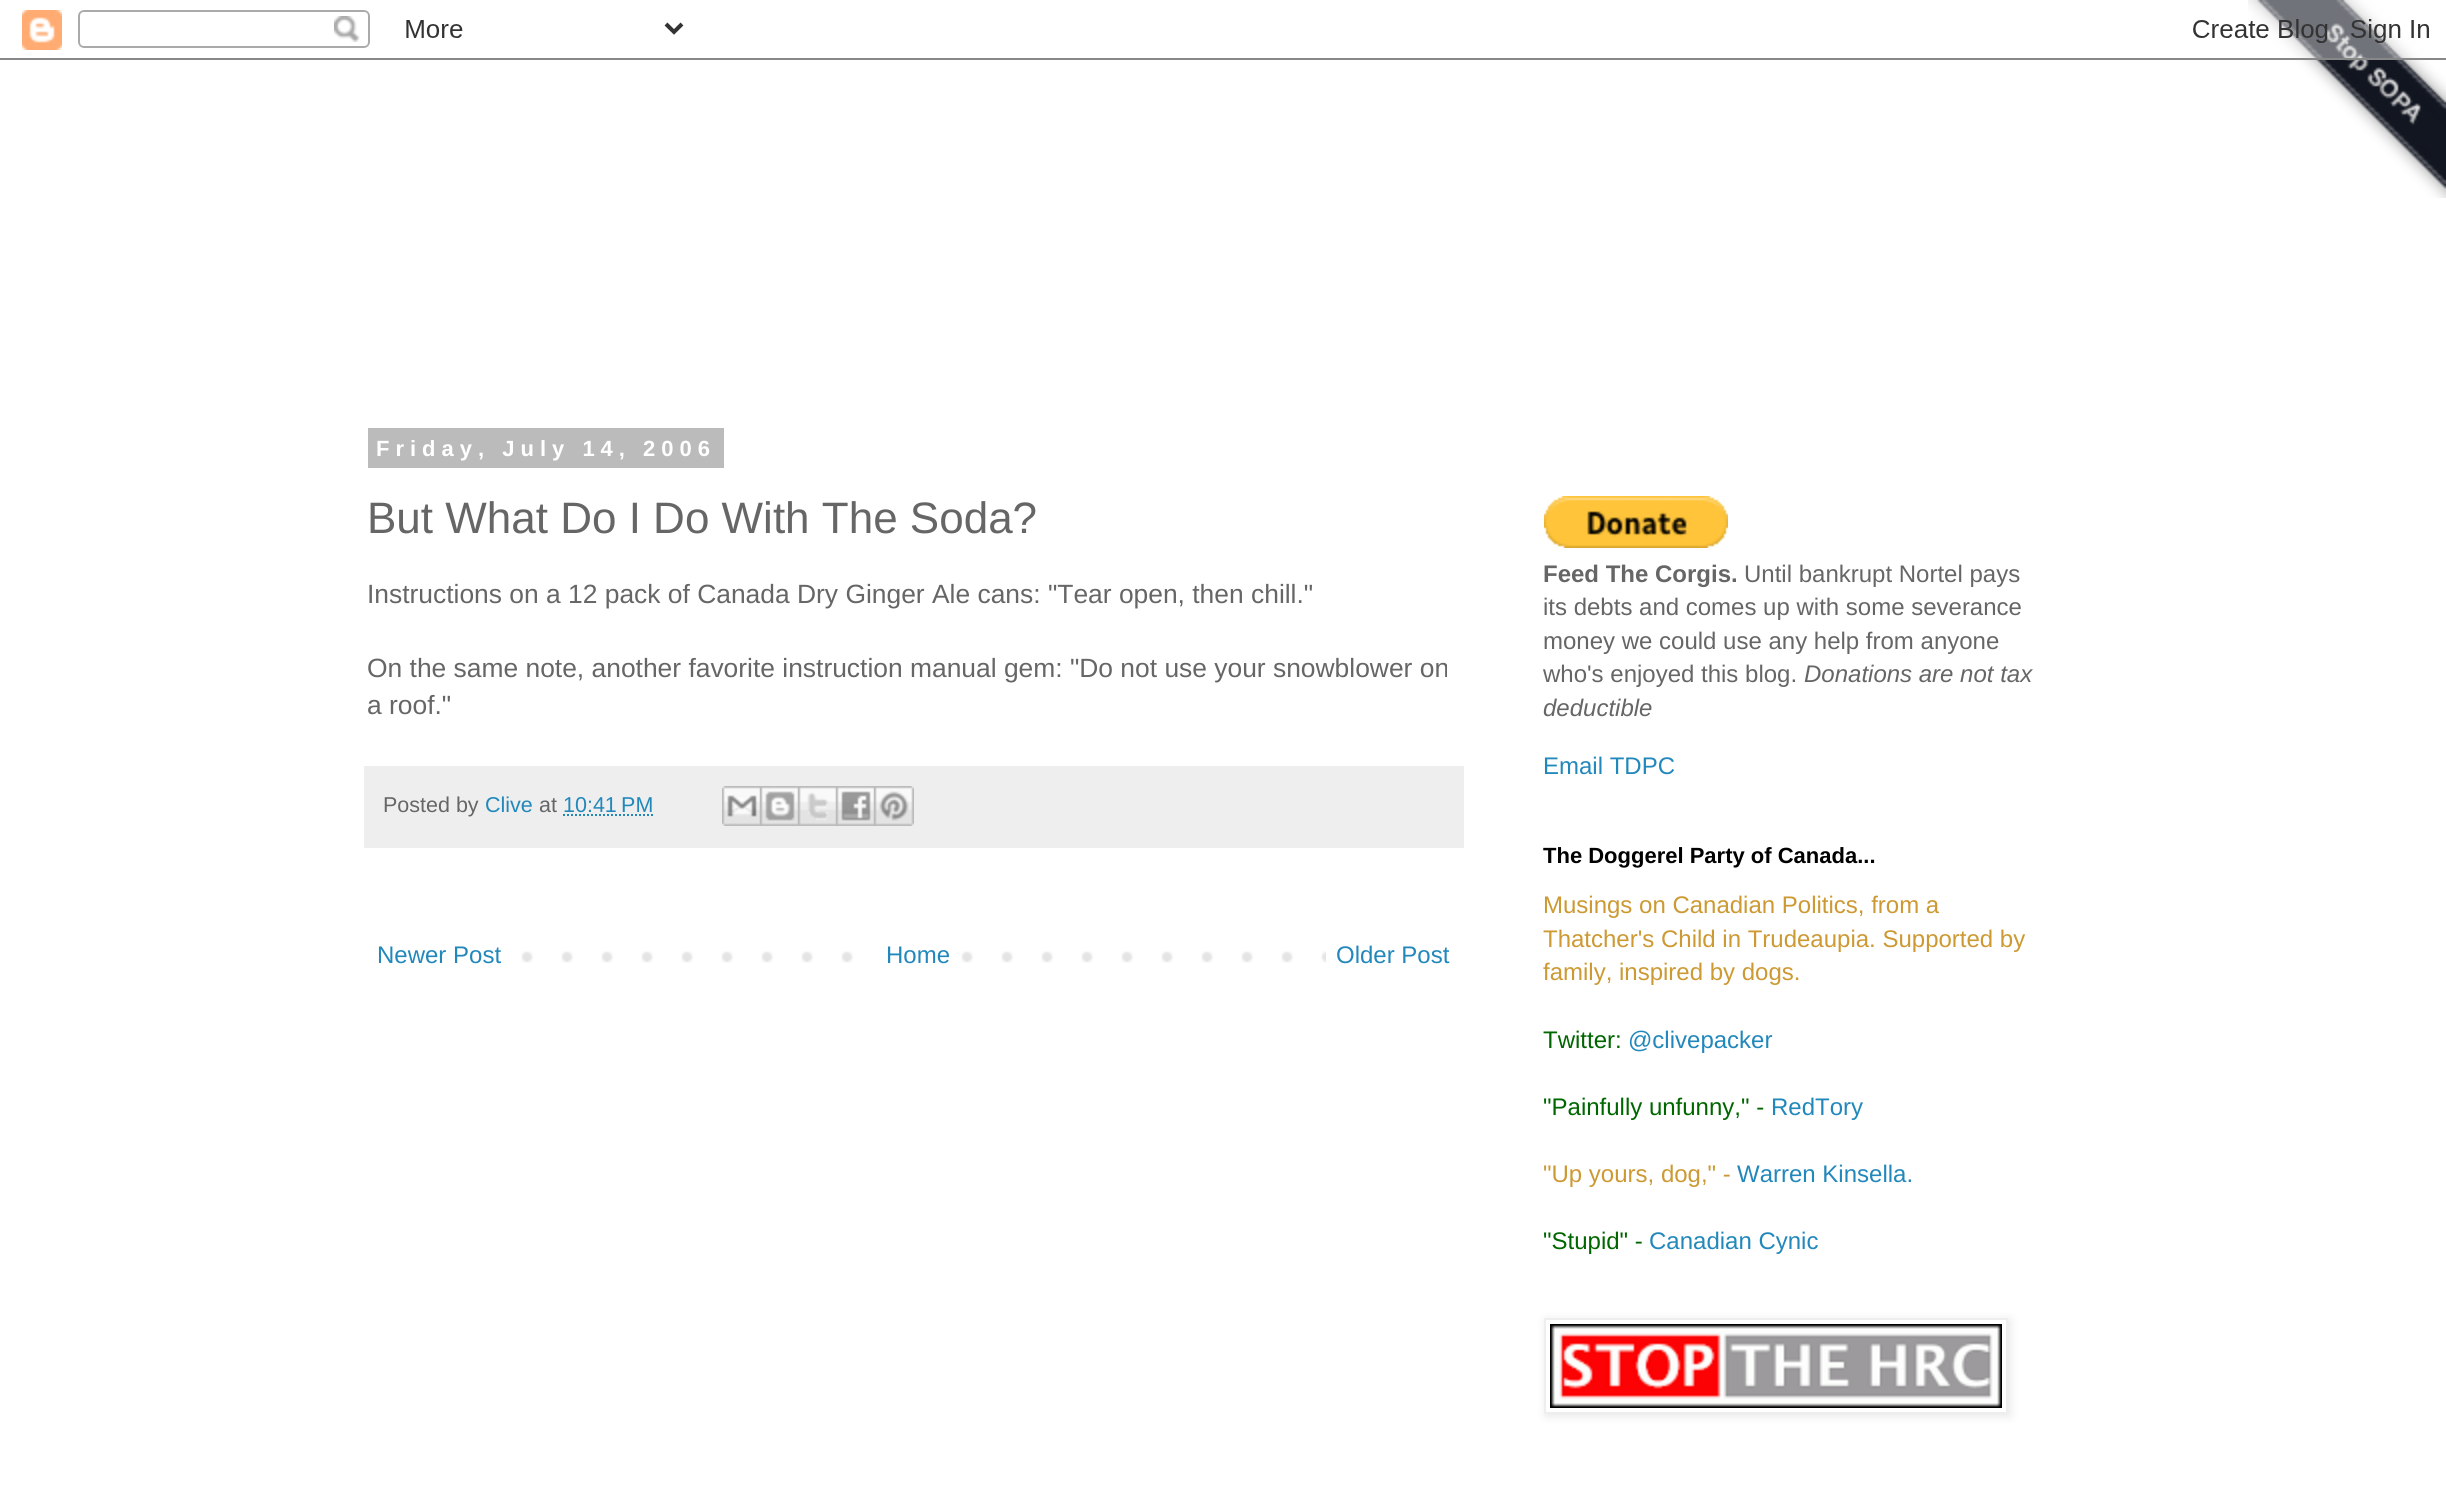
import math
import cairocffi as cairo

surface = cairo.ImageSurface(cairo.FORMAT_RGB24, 2446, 1496)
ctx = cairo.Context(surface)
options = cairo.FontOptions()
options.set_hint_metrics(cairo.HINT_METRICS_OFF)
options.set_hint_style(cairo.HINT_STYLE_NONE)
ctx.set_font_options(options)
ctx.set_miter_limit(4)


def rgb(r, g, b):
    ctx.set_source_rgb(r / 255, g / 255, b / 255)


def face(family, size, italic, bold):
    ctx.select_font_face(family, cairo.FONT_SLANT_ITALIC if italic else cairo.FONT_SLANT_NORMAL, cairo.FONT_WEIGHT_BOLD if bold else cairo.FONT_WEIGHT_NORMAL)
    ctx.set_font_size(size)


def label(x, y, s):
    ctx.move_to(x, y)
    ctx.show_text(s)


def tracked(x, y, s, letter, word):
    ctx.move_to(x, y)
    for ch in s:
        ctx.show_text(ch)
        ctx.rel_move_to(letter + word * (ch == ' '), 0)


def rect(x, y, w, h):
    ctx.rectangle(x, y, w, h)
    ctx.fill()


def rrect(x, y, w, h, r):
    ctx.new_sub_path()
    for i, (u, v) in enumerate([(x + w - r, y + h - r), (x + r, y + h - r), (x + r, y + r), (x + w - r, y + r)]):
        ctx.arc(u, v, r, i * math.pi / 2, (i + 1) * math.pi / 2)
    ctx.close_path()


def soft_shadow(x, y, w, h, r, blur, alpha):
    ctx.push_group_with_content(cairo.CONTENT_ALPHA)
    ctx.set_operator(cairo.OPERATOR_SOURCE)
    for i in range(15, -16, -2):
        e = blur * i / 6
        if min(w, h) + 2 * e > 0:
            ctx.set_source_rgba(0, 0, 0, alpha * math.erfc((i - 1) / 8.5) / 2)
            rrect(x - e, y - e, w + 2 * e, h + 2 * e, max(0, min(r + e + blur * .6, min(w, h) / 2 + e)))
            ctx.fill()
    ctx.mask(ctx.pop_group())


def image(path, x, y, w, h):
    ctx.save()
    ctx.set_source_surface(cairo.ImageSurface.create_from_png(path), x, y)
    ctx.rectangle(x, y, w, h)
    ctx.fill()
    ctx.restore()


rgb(255, 255, 255)
ctx.paint()
image('image7.png', 2248, 0, 198, 198)
image('image0.png', 0, 0, 2446, 60)
rgb(187, 187, 187)
rect(368, 428, 356, 40)
face('Liberation Sans', 22, 0, 1)
rgb(255, 255, 255)
tracked(376, 456, 'Friday, July 14, 2006', 6, 0)
face('Liberation Sans', 44, 0, 0)
rgb(102, 102, 102)
label(367, 533, 'But What Do I Do With The Soda?')
face('Liberation Sans', 26.4, 0, 0)
label(367, 603, 'Instructions on a 12 pack of Canada Dry Ginger Ale cans: "Tear open, then chill."')
label(367, 677, 'On the same note, another favorite instruction manual gem: "Do not use your snowblower on')
label(367, 714, 'a roof."')
rgb(238, 238, 238)
rect(364, 766, 1100, 82)
face('Liberation Sans', 21.5, 0, 0)
rgb(102, 102, 102)
label(383, 812, 'Posted by')
rgb(34, 136, 187)
label(485, 812, 'Clive')
rgb(102, 102, 102)
label(539, 812, 'at')
rgb(34, 136, 187)
label(563, 812, '10:41 PM')
ctx.new_path()
ctx.move_to(563, 815)
ctx.line_to(654, 815)
ctx.set_dash([2, 2])
ctx.stroke()
image('image1.png', 722, 786, 38, 40)
image('image2.png', 760, 786, 38, 40)
image('image3.png', 798, 786, 38, 40)
image('image4.png', 836, 786, 38, 40)
image('image5.png', 874, 786, 40, 40)
image('image6.png', 521, 951, 805, 12)
face('Liberation Sans', 24, 0, 0)
label(377, 963, 'Newer Post')
rgb(255, 255, 255)
rect(881, 951, 53, 12)
rgb(34, 136, 187)
label(886, 963, 'Home')
label(1336, 963, 'Older Post')
image('image8.png', 1544, 496, 184, 52)
face('Liberation Sans', 24, 0, 1)
rgb(102, 102, 102)
label(1543, 582, 'Feed The Corgis.')
face('Liberation Sans', 24, 0, 0)
label(1744, 582, 'Until bankrupt Nortel pays')
label(1543, 615, 'its debts and comes up with some severance')
label(1543, 649, 'money we could use any help from anyone')
label(1543, 682, 'who\'s enjoyed this blog.')
face('Liberation Sans', 24, 1, 0)
label(1804, 682, 'Donations are not tax')
label(1543, 716, 'deductible')
face('Liberation Sans', 24, 0, 0)
rgb(34, 136, 187)
label(1543, 774, 'Email TDPC')
face('Liberation Sans', 22, 0, 1)
rgb(0, 0, 0)
label(1543, 863, 'The Doggerel Party of Canada...')
face('Liberation Sans', 24, 0, 0)
rgb(204, 153, 51)
label(1543, 913, 'Musings on Canadian Politics, from a')
label(1543, 947, 'Thatcher\'s Child in Trudeaupia. Supported by')
label(1543, 980, 'family, inspired by dogs.')
rgb(0, 102, 0)
label(1543, 1048, 'Twitter:')
rgb(34, 136, 187)
label(1628, 1048, '@clivepacker')
rgb(0, 102, 0)
label(1543, 1115, '"Painfully unfunny," -')
rgb(34, 136, 187)
label(1771, 1115, 'RedTory')
rgb(204, 153, 51)
label(1543, 1182, '"Up yours, dog," -')
rgb(34, 136, 187)
label(1737, 1182, 'Warren Kinsella.')
rgb(0, 102, 0)
label(1543, 1249, '"Stupid" -')
rgb(34, 136, 187)
label(1649, 1249, 'Canadian Cynic')
ctx.save()
ctx.set_fill_rule(cairo.FILL_RULE_EVEN_ODD)
ctx.new_path()
ctx.move_to(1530, 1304)
ctx.line_to(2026, 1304)
ctx.line_to(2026, 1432)
ctx.line_to(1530, 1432)
ctx.close_path()
ctx.move_to(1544, 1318)
ctx.line_to(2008, 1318)
ctx.line_to(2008, 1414)
ctx.line_to(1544, 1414)
ctx.close_path()
ctx.clip()
rgb(0, 0, 0)
soft_shadow(1546, 1320, 464, 96, 0, 5, 0.1)
ctx.restore()
ctx.rectangle(1545, 1319, 462, 94)
rgb(238, 238, 238)
ctx.set_dash([])
ctx.stroke()
image('image9.png', 1550, 1324, 452, 84)
surface.write_to_png('render.png')
